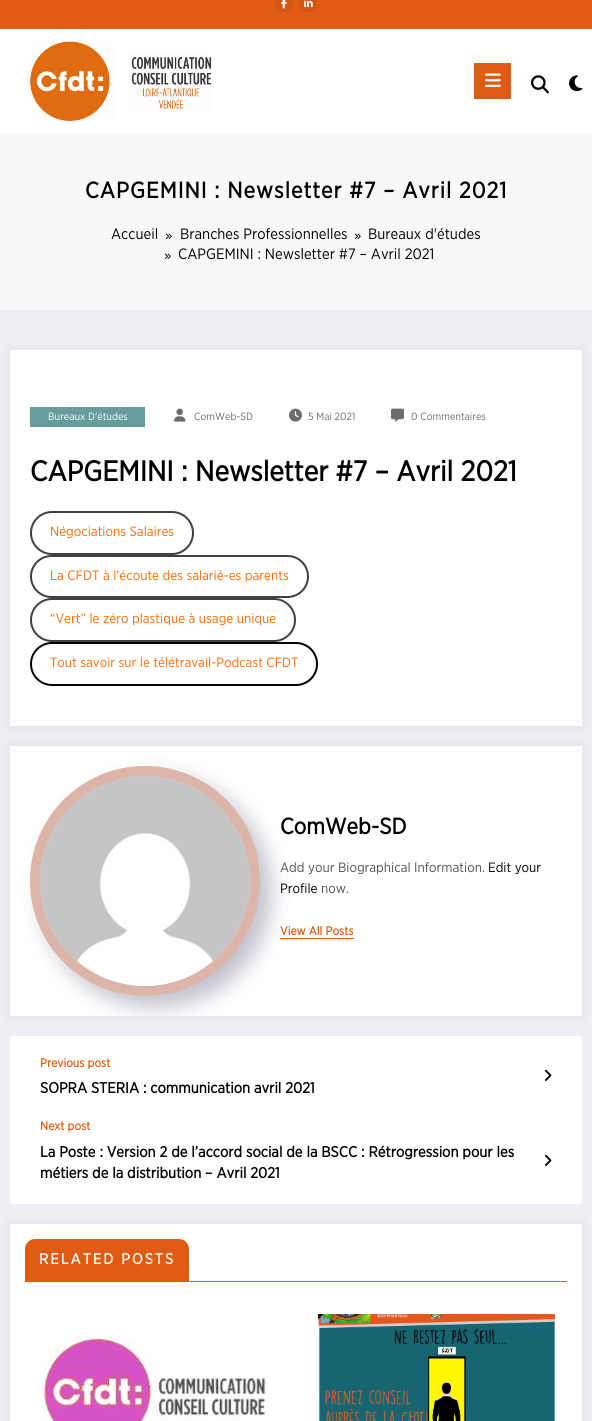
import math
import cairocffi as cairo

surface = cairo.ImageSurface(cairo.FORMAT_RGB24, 592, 1421)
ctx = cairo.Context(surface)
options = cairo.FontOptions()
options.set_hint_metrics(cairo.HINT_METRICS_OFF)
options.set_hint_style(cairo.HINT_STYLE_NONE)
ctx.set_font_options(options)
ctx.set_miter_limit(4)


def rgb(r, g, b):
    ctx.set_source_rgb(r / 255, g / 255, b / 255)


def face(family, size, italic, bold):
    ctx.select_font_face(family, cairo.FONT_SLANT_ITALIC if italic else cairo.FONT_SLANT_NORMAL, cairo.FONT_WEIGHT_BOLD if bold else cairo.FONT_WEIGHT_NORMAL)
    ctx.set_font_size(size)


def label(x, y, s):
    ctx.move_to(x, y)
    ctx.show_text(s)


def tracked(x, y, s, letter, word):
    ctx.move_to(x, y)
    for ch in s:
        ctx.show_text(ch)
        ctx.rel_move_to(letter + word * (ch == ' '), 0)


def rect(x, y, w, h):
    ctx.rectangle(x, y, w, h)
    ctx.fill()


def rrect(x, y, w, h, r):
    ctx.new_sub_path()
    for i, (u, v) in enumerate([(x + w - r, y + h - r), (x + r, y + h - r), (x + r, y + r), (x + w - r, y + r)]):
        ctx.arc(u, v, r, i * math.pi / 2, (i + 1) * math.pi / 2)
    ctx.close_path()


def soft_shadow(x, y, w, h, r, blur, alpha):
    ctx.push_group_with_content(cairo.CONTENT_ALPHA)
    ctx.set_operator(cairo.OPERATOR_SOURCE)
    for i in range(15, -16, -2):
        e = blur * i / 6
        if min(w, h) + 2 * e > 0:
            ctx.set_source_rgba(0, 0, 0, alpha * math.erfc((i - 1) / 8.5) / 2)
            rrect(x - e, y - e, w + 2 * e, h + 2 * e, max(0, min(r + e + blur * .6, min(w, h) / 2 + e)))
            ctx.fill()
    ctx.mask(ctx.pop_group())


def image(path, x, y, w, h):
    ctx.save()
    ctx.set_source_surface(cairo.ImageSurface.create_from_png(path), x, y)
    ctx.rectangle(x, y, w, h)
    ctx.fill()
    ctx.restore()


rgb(238, 238, 245)
ctx.paint()
rgb(225, 92, 18)
rect(0, 0, 592, 29)
rgb(212, 86, 17)
rect(275, 0, 18, 12)
image('image0.png', 281, 0, 6, 9)
rect(299, 0, 18, 12)
image('image1.png', 304, 0, 9, 7)
rgb(255, 255, 255)
rect(0, 29, 592, 104)
image('image2.png', 30, 41, 182, 81)
rgb(225, 92, 18)
rect(474, 63, 37, 36)
image('image3.png', 485, 73, 16, 14)
image('image4.png', 531, 75, 18, 19)
image('image5.png', 569, 75, 14, 17)
rgb(248, 248, 248)
rect(0, 133, 592, 177)
face('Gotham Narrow', 22.5, 0, 1)
rgb(0, 0, 0)
tracked(85, 198, 'CAPGEMINI : Newsletter #7 – Avril 2021', 1, 0)
face('Gotham Narrow', 15, 0, 0)
label(111, 239, 'Accueil')
image('image6.png', 165, 233, 7, 6)
label(180, 239, 'Branches Professionnelles')
image('image6.png', 354, 233, 7, 6)
label(368, 239, 'Bureaux d\'études')
image('image6.png', 164, 253, 7, 6)
label(178, 259, 'CAPGEMINI : Newsletter #7 – Avril 2021')
rgb(23, 23, 35)
soft_shadow(8, 348, 576, 380, 0, 4, 0.05)
rgb(255, 255, 255)
rect(10, 350, 572, 376)
rgb(102, 156, 155)
rect(30, 407, 115, 20)
face('Gotham Narrow', 10.5, 0, 0)
rgb(255, 255, 255)
label(48, 420, 'Bureaux D\'études')
image('image7.png', 174, 408, 12, 14)
rgb(108, 108, 111)
label(194, 420, 'ComWeb-SD')
image('image8.png', 289, 408, 13, 14)
label(308, 420, '5 Mai 2021')
image('image9.png', 391, 408, 13, 14)
label(411, 420, '0 Commentaires')
face('Gotham Narrow', 28.5, 0, 1)
rgb(0, 0, 0)
label(30, 481, 'CAPGEMINI : Newsletter #7 – Avril 2021')
rrect(31, 512, 162, 42, 21)
rgb(64, 64, 64)
ctx.stroke()
face('Gotham Narrow', 13.5, 0, 0)
rgb(255, 105, 0)
label(50, 536, 'Négociations Salaires')
rrect(31, 556, 277, 41, 20.5)
rgb(64, 64, 64)
ctx.stroke()
rgb(255, 105, 0)
label(50, 580, 'La CFDT à l’écoute des salarié-es parents')
rrect(31, 599, 264, 42, 21)
rgb(64, 64, 64)
ctx.stroke()
rgb(255, 105, 0)
label(50, 623, '“Vert” le zéro plastique à usage unique')
rrect(31, 643, 286, 42, 21)
rgb(0, 0, 0)
ctx.stroke()
rgb(255, 105, 0)
label(50, 667, 'Tout savoir sur le télétravail-Podcast CFDT')
rgb(23, 23, 35)
soft_shadow(8, 744, 576, 274, 0, 4, 0.05)
rgb(255, 255, 255)
rect(10, 746, 572, 270)
rgb(225, 92, 18)
rect(280, 938, 74, 1)
rgb(255, 255, 255)
rect(10, 1036, 572, 168)
ctx.save()
ctx.rectangle(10, 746, 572, 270)
ctx.clip()
rgb(4, 8, 54)
soft_shadow(41, 777, 230, 230, 115, 10, 0.25)
ctx.restore()
rgb(220, 220, 232)
ctx.arc(145, 881, 115, 0, 2 * math.pi)
ctx.fill()
ctx.arc(145, 881, 110, 0, 2 * math.pi)
ctx.set_source_rgba(0.882, 0.361, 0.071, 0.3)
ctx.set_line_width(10)
ctx.stroke()
image('image10.png', 40, 776, 210, 210)
face('Gotham Narrow', 22.5, 0, 1)
rgb(0, 0, 0)
label(280, 834, 'ComWeb-SD')
face('Gotham Narrow', 13.5, 0, 0)
rgb(82, 82, 82)
label(280, 872, 'Add your Biographical Information.')
rgb(0, 0, 0)
label(488, 872, 'Edit your')
label(280, 893, 'Profile')
rgb(82, 82, 82)
label(321, 893, 'now.')
face('Gotham Narrow', 12, 0, 1)
rgb(225, 92, 18)
label(280, 935, 'View All Posts')
label(40, 1067, 'Previous post')
face('Gotham Narrow', 15, 0, 1)
rgb(0, 0, 0)
label(40, 1093, 'SOPRA STERIA : communication avril 2021')
image('image11.png', 544, 1069, 8, 12)
face('Gotham Narrow', 12, 0, 1)
rgb(225, 92, 18)
label(40, 1130, 'Next post')
face('Gotham Narrow', 15, 0, 1)
rgb(0, 0, 0)
label(40, 1157, 'La Poste : Version 2 de l’accord social de la BSCC : Rétrogression pour les')
label(40, 1178, 'métiers de la distribution – Avril 2021')
image('image11.png', 544, 1154, 8, 12)
rgb(23, 23, 35)
soft_shadow(8, 1222, 576, 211, 0, 4, 0.05)
rgb(255, 255, 255)
rect(10, 1224, 572, 197)
rgb(225, 92, 18)
rect(25, 1281, 542, 1)
ctx.new_path()
ctx.move_to(35, 1239)
ctx.line_to(179, 1239)
ctx.curve_to(184.5, 1239, 189, 1243.5, 189, 1249)
ctx.line_to(189, 1281)
ctx.line_to(25, 1281)
ctx.line_to(25, 1249)
ctx.curve_to(25, 1243.5, 29.5, 1239, 35, 1239)
ctx.close_path()
ctx.fill()
rgb(255, 255, 255)
tracked(39, 1264, 'RELATED POSTS', 2, 0)
image('image12.png', 42, 1335, 227, 86)
image('image13.png', 318, 1314, 237, 107)
surface.write_to_png('render.png')
